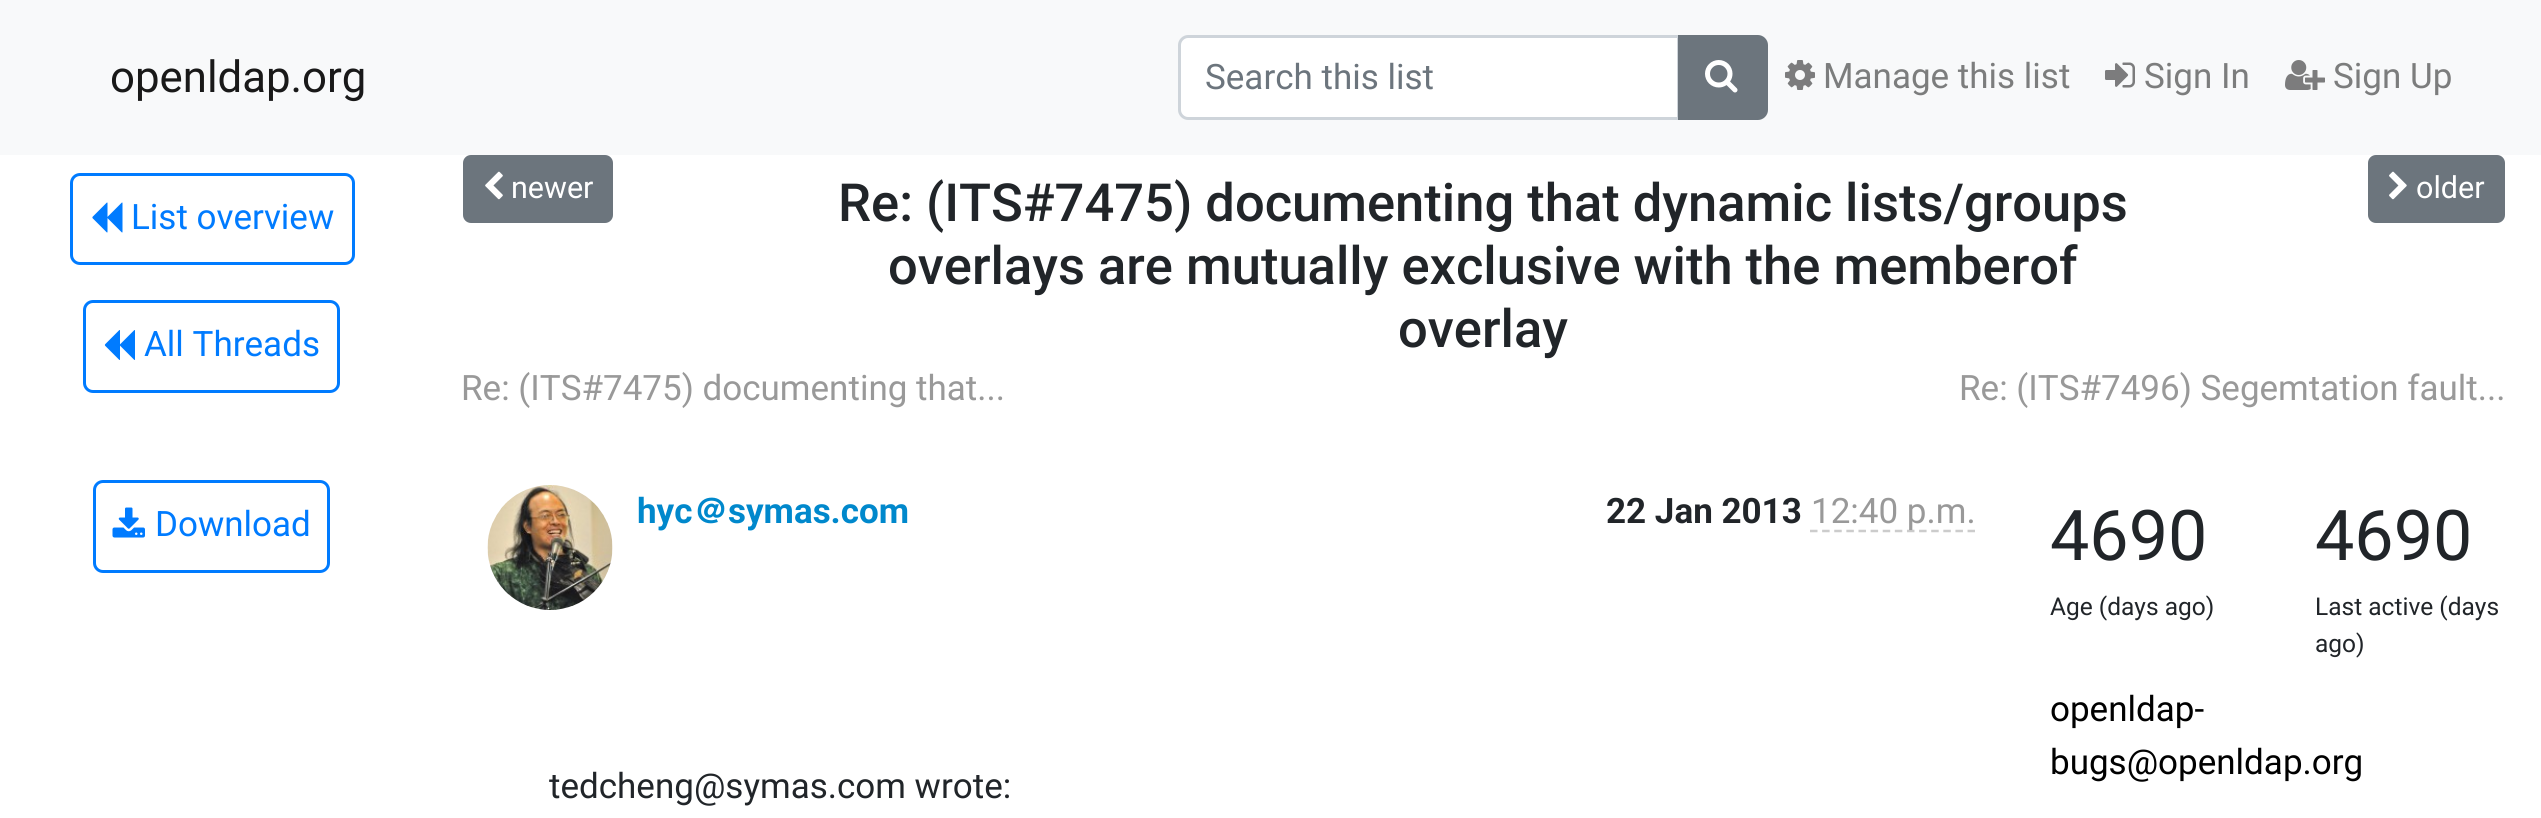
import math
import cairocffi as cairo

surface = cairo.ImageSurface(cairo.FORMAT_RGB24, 2541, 818)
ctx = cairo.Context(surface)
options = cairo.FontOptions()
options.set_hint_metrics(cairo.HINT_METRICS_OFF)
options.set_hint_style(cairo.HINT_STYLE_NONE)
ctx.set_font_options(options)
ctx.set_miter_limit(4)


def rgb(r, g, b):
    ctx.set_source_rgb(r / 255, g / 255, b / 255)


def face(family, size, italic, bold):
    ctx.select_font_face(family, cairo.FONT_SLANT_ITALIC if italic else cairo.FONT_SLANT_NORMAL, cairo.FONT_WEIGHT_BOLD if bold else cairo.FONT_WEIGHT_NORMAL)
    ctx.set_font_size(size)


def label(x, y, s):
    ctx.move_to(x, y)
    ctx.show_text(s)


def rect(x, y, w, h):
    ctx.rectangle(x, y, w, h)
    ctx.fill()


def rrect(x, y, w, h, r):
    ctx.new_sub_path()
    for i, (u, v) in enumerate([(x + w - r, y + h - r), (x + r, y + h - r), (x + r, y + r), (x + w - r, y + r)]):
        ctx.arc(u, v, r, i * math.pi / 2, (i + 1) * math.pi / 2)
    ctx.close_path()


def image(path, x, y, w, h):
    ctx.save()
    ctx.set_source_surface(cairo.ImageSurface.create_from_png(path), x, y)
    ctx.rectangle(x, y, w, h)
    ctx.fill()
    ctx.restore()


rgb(255, 255, 255)
ctx.paint()
rgb(248, 249, 250)
rect(0, 0, 2541, 155)
face('Roboto', 43.75, 0, 0)
rgb(25, 25, 25)
label(110, 92, 'openldap.org')
rgb(255, 255, 255)
ctx.new_path()
ctx.move_to(1186, 38)
ctx.line_to(1678, 38)
ctx.line_to(1678, 118)
ctx.line_to(1186, 118)
ctx.curve_to(1182.5, 118, 1180, 115.5, 1180, 112)
ctx.line_to(1180, 44)
ctx.curve_to(1180, 40.5, 1182.5, 38, 1186, 38)
ctx.close_path()
ctx.fill()
ctx.new_path()
ctx.move_to(1188, 36.5)
ctx.line_to(1678.5, 36.5)
ctx.line_to(1678.5, 118.5)
ctx.line_to(1188, 118.5)
ctx.curve_to(1183.5, 118.5, 1179.5, 114.5, 1179.5, 110)
ctx.line_to(1179.5, 45)
ctx.curve_to(1179.5, 40.5, 1183.5, 36.5, 1188, 36.5)
ctx.close_path()
rgb(206, 212, 218)
ctx.set_line_width(3)
ctx.stroke()
face('Roboto', 35, 0, 0)
rgb(108, 117, 125)
label(1205, 89, 'Search this list')
ctx.new_path()
ctx.move_to(1679.5, 36.5)
ctx.line_to(1758, 36.5)
ctx.curve_to(1762.5, 36.5, 1766.5, 40.5, 1766.5, 45)
ctx.line_to(1766.5, 110)
ctx.curve_to(1766.5, 114.5, 1762.5, 118.5, 1758, 118.5)
ctx.line_to(1679.5, 118.5)
ctx.close_path()
ctx.fill_preserve()
ctx.stroke()
image('image0.png', 1705, 60, 33, 33)
image('image1.png', 1785, 60, 30, 30)
rgb(124, 125, 125)
label(1823, 88, 'Manage this list')
image('image2.png', 2105, 62, 30, 26)
label(2144, 88, 'Sign In')
image('image3.png', 2285, 60, 40, 30)
label(2333, 88, 'Sign Up')
rrect(71.5, 174.5, 282, 89, 8.5)
rgb(0, 123, 255)
ctx.stroke()
image('image4.png', 92, 202, 31, 31)
label(131, 229, 'List overview')
rrect(84.5, 301.5, 254, 90, 8.5)
ctx.stroke()
image('image5.png', 104, 330, 31, 30)
label(144, 356, 'All Threads')
rrect(94.5, 481.5, 234, 90, 8.5)
ctx.stroke()
image('image6.png', 112, 507, 33, 31)
label(155, 536, 'Download')
rgb(108, 117, 125)
rrect(464.5, 156.5, 147, 65, 6.5)
ctx.fill_preserve()
ctx.stroke()
image('image7.png', 485, 171, 18, 29)
face('Roboto', 30.5, 0, 0)
rgb(255, 255, 255)
label(511, 198, 'newer')
face('Roboto Medium', 52.5, 0, 0)
rgb(33, 37, 41)
label(838, 221, 'Re: (ITS#7475) documenting that dynamic lists/groups')
label(888, 284, 'overlays are mutually exclusive with the memberof')
label(1398, 347, 'overlay')
rgb(108, 117, 125)
rrect(2369.5, 156.5, 134, 65, 6.5)
ctx.fill_preserve()
ctx.stroke()
image('image8.png', 2389, 171, 18, 29)
face('Roboto', 30.5, 0, 0)
rgb(255, 255, 255)
label(2416, 198, 'older')
face('Roboto', 35, 0, 0)
rgb(153, 153, 153)
label(461, 400, 'Re: (ITS#7475) documenting that...')
label(1959, 400, 'Re: (ITS#7496) Segemtation fault...')
image('image9.png', 487, 485, 126, 125)
face('Roboto', 35, 0, 1)
rgb(0, 136, 204)
label(637, 523, 'hyc')
face('WenQuanYi Zen Hei', 35, 0, 1)
label(693, 523, '＠')
face('Roboto', 35, 0, 1)
label(728, 523, 'symas.com')
rgb(33, 37, 41)
label(1606, 523, '22 Jan 2013')
ctx.new_path()
ctx.move_to(1810, 531)
ctx.line_to(1975, 531)
rgb(204, 204, 204)
ctx.set_line_width(2.5)
ctx.set_dash([7.5, 4.62])
ctx.stroke()
face('Roboto', 35, 0, 0)
rgb(153, 153, 153)
label(1811, 523, '12:40 p.m.')
rgb(33, 37, 41)
label(549, 798, 'tedcheng@symas.com wrote:')
face('Roboto', 70, 0, 0)
label(2050, 560, '4690')
face('Roboto', 24.5, 0, 0)
label(2050, 615, 'Age (days ago)')
face('Roboto', 70, 0, 0)
label(2315, 560, '4690')
face('Roboto', 24.5, 0, 0)
label(2315, 615, 'Last active (days')
label(2315, 652, 'ago)')
face('Roboto', 35, 0, 0)
rgb(0, 0, 0)
label(2050, 721, 'openldap-')
label(2050, 774, 'bugs@openldap.org')
surface.write_to_png('render.png')
